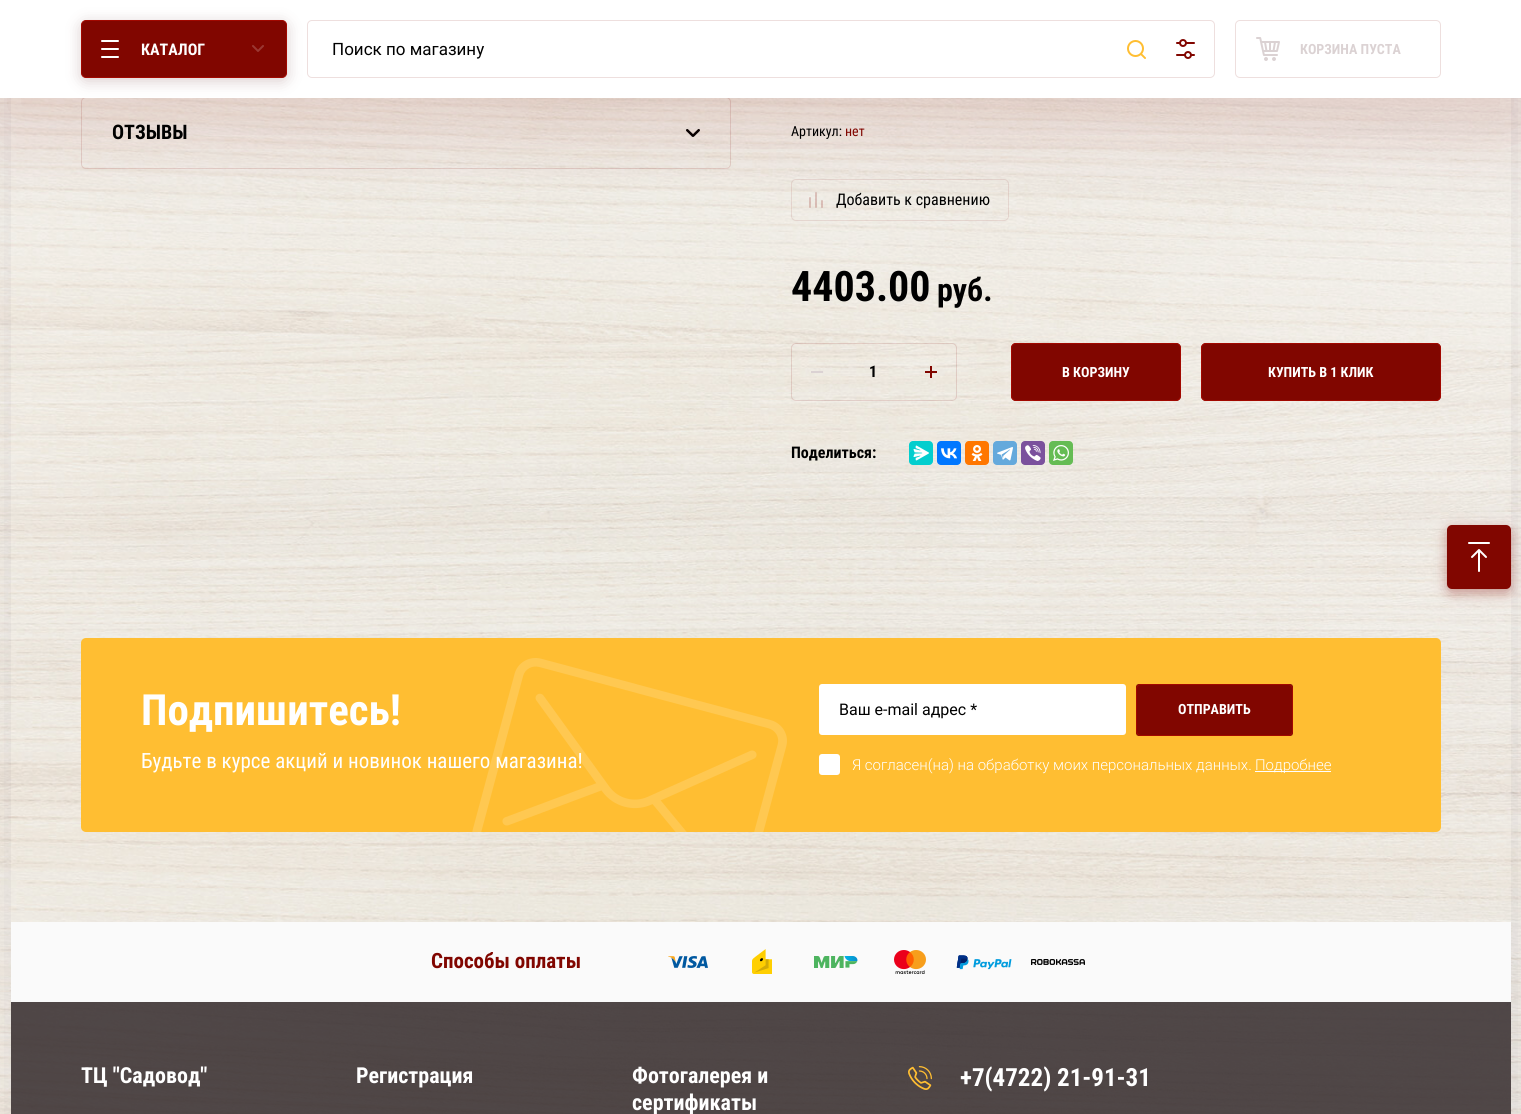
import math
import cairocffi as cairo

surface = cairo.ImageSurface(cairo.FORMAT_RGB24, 1521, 1114)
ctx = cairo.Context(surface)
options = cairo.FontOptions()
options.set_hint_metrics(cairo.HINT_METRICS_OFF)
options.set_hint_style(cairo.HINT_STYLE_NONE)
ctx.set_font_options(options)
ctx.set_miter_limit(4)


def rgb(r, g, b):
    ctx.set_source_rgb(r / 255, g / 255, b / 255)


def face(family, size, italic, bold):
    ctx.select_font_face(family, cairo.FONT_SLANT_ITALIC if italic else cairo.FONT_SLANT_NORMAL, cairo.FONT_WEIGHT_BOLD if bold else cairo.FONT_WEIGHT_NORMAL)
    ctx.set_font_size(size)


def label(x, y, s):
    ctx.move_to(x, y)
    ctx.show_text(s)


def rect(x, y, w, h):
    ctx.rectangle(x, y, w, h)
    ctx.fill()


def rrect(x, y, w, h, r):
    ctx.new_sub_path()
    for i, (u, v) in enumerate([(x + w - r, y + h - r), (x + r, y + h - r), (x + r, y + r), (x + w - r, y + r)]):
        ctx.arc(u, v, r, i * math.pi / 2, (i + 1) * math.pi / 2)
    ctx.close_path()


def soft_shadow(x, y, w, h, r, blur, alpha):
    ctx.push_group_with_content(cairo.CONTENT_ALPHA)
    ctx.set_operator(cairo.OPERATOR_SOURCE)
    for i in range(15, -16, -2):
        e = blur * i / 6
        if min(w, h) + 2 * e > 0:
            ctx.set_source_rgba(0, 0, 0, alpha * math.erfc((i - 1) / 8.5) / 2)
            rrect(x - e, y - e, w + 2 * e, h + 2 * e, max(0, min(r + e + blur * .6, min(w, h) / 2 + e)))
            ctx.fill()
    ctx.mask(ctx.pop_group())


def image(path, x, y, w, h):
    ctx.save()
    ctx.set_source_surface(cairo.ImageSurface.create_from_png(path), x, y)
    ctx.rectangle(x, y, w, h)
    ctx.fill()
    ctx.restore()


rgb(255, 255, 255)
ctx.paint()
image('image0.png', 0, 98, 1521, 1016)
ctx.save()
ctx.set_fill_rule(cairo.FILL_RULE_EVEN_ODD)
ctx.new_path()
ctx.move_to(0, 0)
ctx.line_to(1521, 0)
ctx.line_to(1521, 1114)
ctx.line_to(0, 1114)
ctx.close_path()
ctx.move_to(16, -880)
ctx.line_to(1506, -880)
ctx.curve_to(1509, -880, 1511, -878, 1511, -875)
ctx.line_to(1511, 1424)
ctx.curve_to(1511, 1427, 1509, 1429, 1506, 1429)
ctx.line_to(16, 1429)
ctx.curve_to(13, 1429, 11, 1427, 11, 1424)
ctx.line_to(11, -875)
ctx.curve_to(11, -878, 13, -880, 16, -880)
ctx.close_path()
ctx.clip()
rgb(86, 86, 81)
soft_shadow(11, -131, 1500, 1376, 5, 42, 0.15)
ctx.restore()
rrect(81.5, 97.5, 649, 71, 4.5)
ctx.set_source_rgba(0.494, 0.024, 0, 0.13)
ctx.set_line_width(1)
ctx.stroke()
image('image6.png', 686, 129, 14, 8)
rrect(791.5, 179.5, 217, 41, 4.5)
ctx.set_source_rgba(0.506, 0.024, 0, 0.1)
ctx.stroke()
image('image7.png', 809, 192, 14, 16)
rgb(126, 6, 0)
soft_shadow(0, 30, 1521, 98, 0, 42, 0.15)
rgb(255, 255, 255)
rect(0, 0, 1521, 98)
rgb(93, 32, 37)
soft_shadow(81, 23, 206, 58, 5, 7.5, 0.23)
rgb(129, 6, 0)
rrect(81.5, 20.5, 205, 57, 4.5)
ctx.fill_preserve()
rgb(162, 8, 0)
ctx.stroke()
image('image1.png', 101, 40, 18, 18)
face('Roboto Condensed', 16, 0, 1)
rgb(255, 255, 255)
label(141, 55, 'КАТАЛОГ')
image('image2.png', 252, 45, 12, 7)
rrect(307.5, 20.5, 907, 57, 4.5)
rgb(238, 223, 222)
ctx.stroke()
face('Roboto', 17, 0, 0)
rgb(0, 0, 0)
label(332, 55, 'Поиск по магазину')
image('image3.png', 1127, 40, 19, 19)
image('image4.png', 1176, 39, 19, 20)
rrect(1235.5, 20.5, 205, 57, 4.5)
rgb(238, 223, 222)
ctx.stroke()
image('image5.png', 1256, 37, 24, 24)
face('Roboto Condensed', 14, 0, 1)
rgb(219, 210, 211)
label(1300, 54, 'КОРЗИНА ПУСТА')
face('Roboto Condensed', 20, 0, 1)
rgb(0, 0, 0)
label(112, 139, 'ОТЗЫВЫ')
face('Roboto Condensed', 14, 0, 0)
label(791, 136, 'Артикул:')
rgb(129, 6, 0)
label(845, 136, 'нет')
face('Roboto Condensed', 16, 0, 0)
rgb(0, 0, 0)
label(836, 205, 'Добавить к сравнению')
face('Roboto Condensed', 42, 0, 1)
label(791, 301, '4403.00')
face('Roboto Condensed', 32, 0, 1)
label(937, 301, 'руб.')
rrect(791.5, 343.5, 165, 57, 4.5)
ctx.set_source_rgba(0.494, 0.024, 0, 0.13)
ctx.stroke()
rgb(219, 210, 211)
rect(811, 371, 12, 2)
face('Roboto Condensed', 16, 0, 1)
rgb(0, 0, 0)
label(869, 377, '1')
image('image8.png', 925, 366, 12, 12)
rgb(129, 6, 0)
rrect(1011, 343, 170, 58, 5)
ctx.fill()
rrect(1011.5, 343.5, 169, 57, 4.5)
rgb(162, 8, 0)
ctx.stroke()
face('Roboto Condensed', 14, 0, 1)
rgb(255, 255, 255)
label(1062, 377, 'В КОРЗИНУ')
rgb(129, 6, 0)
rrect(1201, 343, 240, 58, 5)
ctx.fill()
rrect(1201.5, 343.5, 239, 57, 4.5)
rgb(162, 8, 0)
ctx.stroke()
rgb(255, 255, 255)
label(1268, 377, 'КУПИТЬ В 1 КЛИК')
face('Roboto Condensed', 16, 0, 1)
rgb(0, 0, 0)
label(791, 458, 'Поделиться:')
rgb(3, 206, 206)
rrect(909, 441, 24, 24, 4)
ctx.fill()
image('image9.png', 913, 445, 16, 16)
rgb(0, 119, 255)
rrect(937, 441, 24, 24, 4)
ctx.fill()
image('image10.png', 941, 448, 16, 11)
rgb(255, 119, 0)
rrect(965, 441, 24, 24, 4)
ctx.fill()
image('image11.png', 971, 445, 12, 16)
rgb(100, 169, 220)
rrect(993, 441, 24, 24, 4)
ctx.fill()
image('image12.png', 997, 447, 16, 14)
rgb(123, 81, 157)
rrect(1021, 441, 24, 24, 4)
ctx.fill()
image('image13.png', 1025, 445, 16, 16)
rgb(101, 188, 84)
rrect(1049, 441, 24, 24, 4)
ctx.fill()
image('image14.png', 1053, 445, 16, 16)
rgb(255, 190, 50)
rrect(81, 638, 1360, 194, 5)
ctx.fill()
face('Roboto Condensed', 43, 0, 1)
rgb(255, 255, 255)
label(141, 725, 'Подпишитесь!')
face('Roboto Condensed', 21, 0, 0)
label(141, 768, 'Будьте в курсе акций и новинок нашего магазина!')
image('image15.png', 472, 658, 315, 174)
rrect(819, 684, 307, 51, 3)
ctx.fill()
face('Roboto', 16, 0, 0)
rgb(0, 0, 0)
label(839, 715, 'Ваш e-mail адрес *')
rgb(129, 6, 0)
rrect(1136, 684, 157, 52, 3)
ctx.fill()
ctx.rectangle(1136.5, 684.5, 156, 51)
ctx.set_source_rgba(0, 0, 0, 0.06)
ctx.stroke()
rrect(1136.5, 684.5, 156, 51, 4.5)
rgb(162, 8, 0)
ctx.stroke()
face('Roboto Condensed', 14, 0, 1)
rgb(255, 255, 255)
label(1178, 714, 'ОТПРАВИТЬ')
rrect(819, 754, 21, 21, 3)
ctx.fill()
face('Roboto Light', 15, 0, 0)
label(852, 770, 'Я согласен(на) на обработку моих персональных данных.')
rgb(254, 254, 255)
rect(1255, 771, 76, 1)
rgb(255, 255, 255)
label(1255, 770, 'Подробнее')
rgb(250, 250, 250)
rect(11, 922, 1500, 80)
face('Roboto Condensed', 21, 0, 1)
rgb(129, 6, 0)
label(431, 968, 'Способы оплаты')
image('image16.png', 668, 956, 40, 12)
image('image17.png', 752, 949, 20, 25)
image('image18.png', 814, 956, 44, 12)
image('image19.png', 894, 950, 32, 24)
image('image20.png', 956, 955, 56, 15)
image('image21.png', 1031, 959, 54, 6)
rgb(129, 6, 0)
soft_shadow(1447, 529, 64, 64, 5, 6.5, 0.4)
rgb(129, 6, 0)
rrect(1447, 525, 64, 64, 5)
ctx.fill()
image('image22.png', 1468, 542, 22, 30)
rgb(37, 28, 29)
rect(11, 1002, 1500, 112)
image('image23.png', 11, 1002, 1500, 112)
face('Roboto Condensed', 22, 0, 1)
rgb(255, 255, 255)
label(81, 1083, 'ТЦ "Садовод"')
label(356, 1083, 'Регистрация')
label(632, 1083, 'Фотогалерея и')
label(632, 1110, 'сертификаты')
image('image24.png', 908, 1066, 24, 24)
face('Roboto Condensed', 25, 0, 1)
label(960, 1086, '+7(4722) 21-91-31')
surface.write_to_png('render.png')
